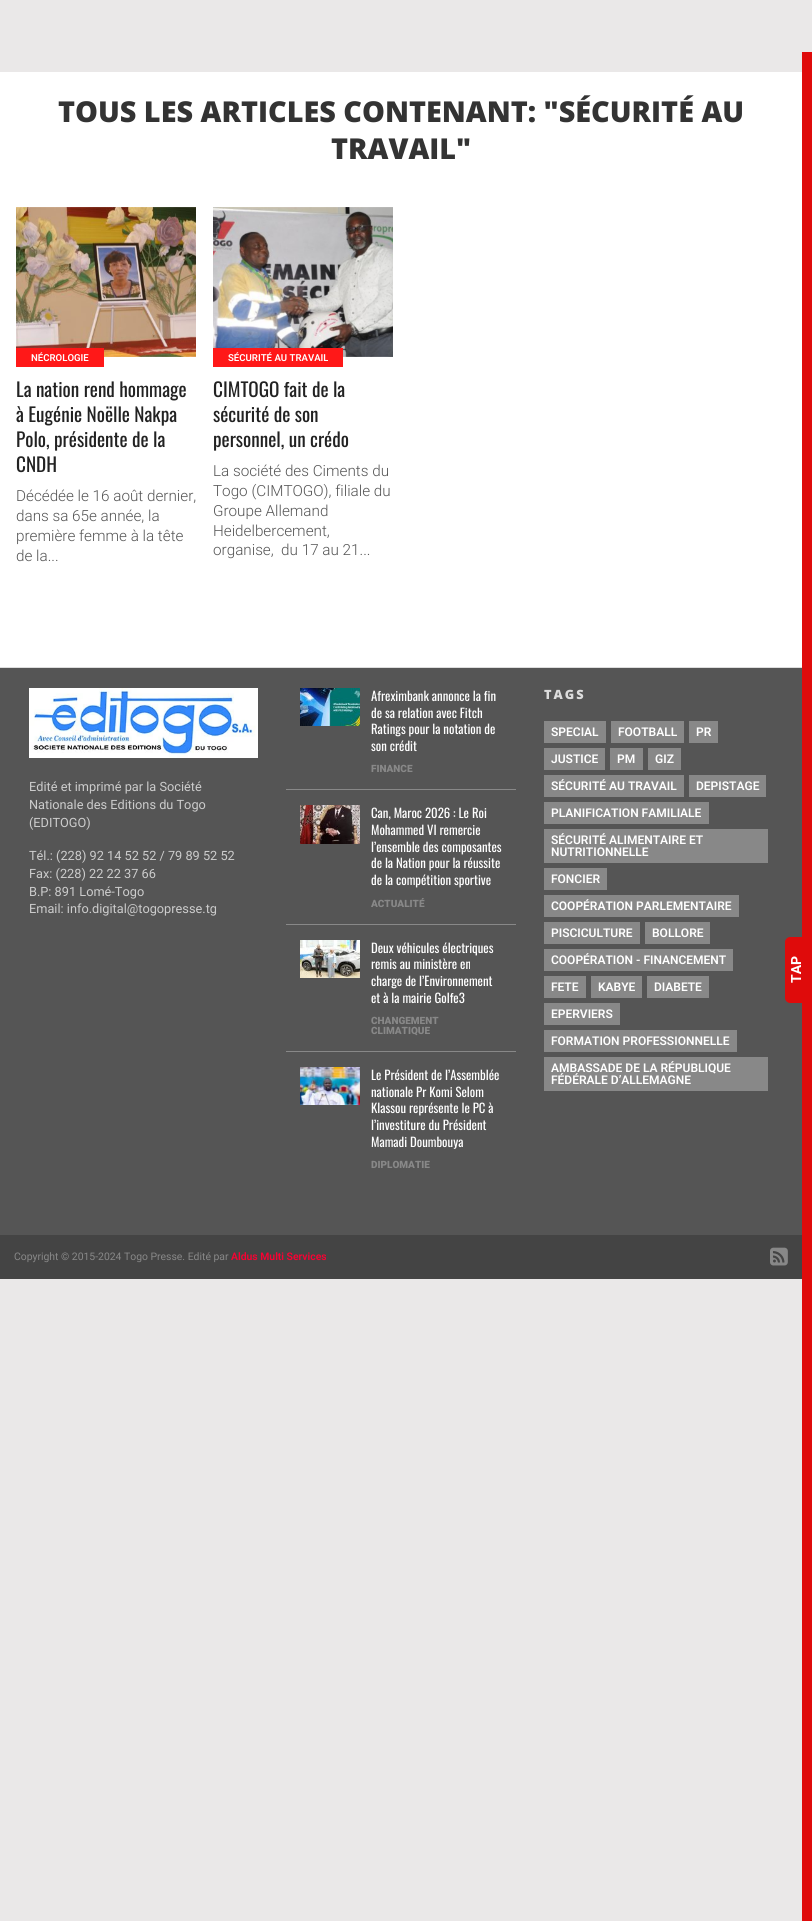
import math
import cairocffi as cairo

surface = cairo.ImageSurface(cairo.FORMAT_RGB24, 812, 1921)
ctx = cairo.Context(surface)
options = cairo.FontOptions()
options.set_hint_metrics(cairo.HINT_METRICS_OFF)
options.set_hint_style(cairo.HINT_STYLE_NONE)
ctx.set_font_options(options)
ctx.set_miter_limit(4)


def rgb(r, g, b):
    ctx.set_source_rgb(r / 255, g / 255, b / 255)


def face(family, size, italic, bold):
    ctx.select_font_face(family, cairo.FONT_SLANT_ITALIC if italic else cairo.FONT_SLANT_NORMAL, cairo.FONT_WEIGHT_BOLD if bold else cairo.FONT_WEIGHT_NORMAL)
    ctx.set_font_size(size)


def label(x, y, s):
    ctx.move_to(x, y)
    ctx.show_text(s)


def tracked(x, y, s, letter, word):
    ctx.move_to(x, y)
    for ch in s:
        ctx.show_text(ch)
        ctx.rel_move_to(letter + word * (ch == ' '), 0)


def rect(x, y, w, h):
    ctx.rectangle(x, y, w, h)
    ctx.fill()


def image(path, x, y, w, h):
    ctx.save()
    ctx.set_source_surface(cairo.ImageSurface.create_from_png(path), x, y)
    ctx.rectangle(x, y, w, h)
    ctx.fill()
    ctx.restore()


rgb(234, 232, 232)
ctx.paint()
rgb(255, 255, 255)
rect(0, 72, 802, 595)
face('Open Sans ExtraBold', 28.8, 0, 0)
rgb(51, 51, 51)
label(58, 122, 'TOUS LES ARTICLES CONTENANT: "SÉCURITÉ AU')
label(331, 159, 'TRAVAIL"')
rgb(221, 221, 221)
rect(0, 667, 802, 1)
image('image0.png', 16, 207, 180, 150)
rgb(255, 24, 24)
rect(16, 348, 88, 19)
face('Roboto SemiBold', 9.6, 0, 0)
rgb(255, 255, 255)
label(31, 361, 'NÉCROLOGIE')
face('Oswald', 19.25, 0, 0)
rgb(34, 34, 34)
label(16, 397, 'La nation rend hommage')
label(16, 422, 'à Eugénie Noëlle Nakpa')
label(16, 447, 'Polo, présidente de la')
label(16, 472, 'CNDH')
face('Roboto Light', 15.25, 0, 0)
rgb(85, 85, 85)
label(16, 501, 'Décédée le 16 août dernier,')
label(16, 521, 'dans sa 65e année, la')
label(16, 541, 'première femme à la tête')
label(16, 561, 'de la...')
image('image1.png', 213, 207, 180, 150)
rgb(255, 24, 24)
rect(213, 348, 130, 19)
face('Roboto SemiBold', 9.6, 0, 0)
rgb(255, 255, 255)
label(228, 361, 'SÉCURITÉ AU TRAVAIL')
face('Oswald', 19.25, 0, 0)
rgb(34, 34, 34)
label(213, 397, 'CIMTOGO fait de la')
label(213, 422, 'sécurité de son')
label(213, 447, 'personnel, un crédo')
face('Roboto Light', 15.25, 0, 0)
rgb(85, 85, 85)
label(213, 476, 'La société des Ciments du')
label(213, 496, 'Togo (CIMTOGO), filiale du')
label(213, 516, 'Groupe Allemand')
label(213, 536, 'Heidelbercement,')
label(213, 555, 'organise,  du 17 au 21...')
rgb(223, 11, 11)
rect(802, 52, 10, 1869)
rgb(85, 85, 85)
rect(0, 668, 802, 567)
rgb(223, 11, 11)
ctx.new_path()
ctx.move_to(785, 998)
ctx.line_to(785, 942)
ctx.curve_to(785, 939, 788, 937, 790, 937)
ctx.line_to(804, 937)
ctx.curve_to(807, 937, 809, 939, 809, 942)
ctx.line_to(809, 998)
ctx.curve_to(809, 1001, 807, 1003, 804, 1003)
ctx.line_to(790, 1003)
ctx.curve_to(788, 1003, 785, 1001, 785, 998)
ctx.close_path()
ctx.fill()
face('Roboto', 14, 0, 1)
rgb(255, 255, 255)
ctx.save()
ctx.translate(801, 983)
ctx.rotate(-90 * math.pi / 180)
label(0, 0, 'TAP')
ctx.restore()
image('image2.png', 29, 688, 229, 70)
face('Roboto', 12.75, 0, 0)
rgb(204, 204, 204)
label(29, 791, 'Edité et imprimé par la Société')
label(29, 809, 'Nationale des Editions du Togo')
label(29, 827, '(EDITOGO)')
label(29, 860, 'Tél.: (228) 92 14 52 52 / 79 89 52 52')
label(29, 878, 'Fax: (228) 22 22 37 66')
label(29, 896, 'B.P: 891 Lomé-Togo')
label(29, 913, 'Email: info.digital@togopresse.tg')
image('image3.png', 300, 688, 60, 38)
face('Oswald', 12.75, 0, 0)
rgb(255, 255, 255)
label(371, 701, 'Afreximbank annonce la fin')
label(371, 718, 'de sa relation avec Fitch')
label(371, 734, 'Ratings pour la notation de')
label(371, 751, 'son crédit')
face('Roboto Black', 10, 0, 0)
rgb(136, 136, 136)
label(371, 772, 'FINANCE')
rect(286, 789, 230, 1)
image('image4.png', 300, 805, 60, 39)
face('Oswald', 12.75, 0, 0)
rgb(255, 255, 255)
label(371, 818, 'Can, Maroc 2026 : Le Roi')
label(371, 835, 'Mohammed VI remercie')
label(371, 852, 'l’ensemble des composantes')
label(371, 868, 'de la Nation pour la réussite')
label(371, 885, 'de la compétition sportive')
face('Roboto Black', 10, 0, 0)
rgb(136, 136, 136)
label(371, 907, 'ACTUALITÉ')
rect(286, 924, 230, 1)
image('image5.png', 300, 940, 60, 38)
face('Oswald', 12.75, 0, 0)
rgb(255, 255, 255)
label(371, 953, 'Deux véhicules électriques')
label(371, 969, 'remis au ministère en')
label(371, 986, 'charge de l’Environnement')
label(371, 1003, 'et à la mairie Golfe3')
face('Roboto Black', 10, 0, 0)
rgb(136, 136, 136)
label(371, 1024, 'CHANGEMENT')
label(371, 1034, 'CLIMATIQUE')
rect(286, 1051, 230, 1)
image('image6.png', 300, 1067, 60, 38)
face('Oswald', 12.75, 0, 0)
rgb(255, 255, 255)
label(371, 1080, 'Le Président de l’Assemblée')
label(371, 1097, 'nationale Pr Komi Selom')
label(371, 1113, 'Klassou représente le PC à')
label(371, 1130, 'l’investiture du Président')
label(371, 1147, 'Mamadi Doumbouya')
face('Roboto Black', 10, 0, 0)
rgb(136, 136, 136)
label(371, 1168, 'DIPLOMATIE')
face('Open Sans ExtraBold', 12.75, 0, 0)
rgb(221, 221, 221)
tracked(544, 699, 'TAGS', 2, 0)
rgb(136, 136, 136)
rect(544, 721, 62, 22)
face('Roboto SemiBold', 12, 0, 0)
rgb(255, 255, 255)
label(551, 736, 'SPECIAL')
rgb(136, 136, 136)
rect(611, 721, 73, 22)
rgb(255, 255, 255)
label(618, 736, 'FOOTBALL')
rgb(136, 136, 136)
rect(689, 721, 29, 22)
rgb(255, 255, 255)
label(696, 736, 'PR')
rgb(136, 136, 136)
rect(544, 748, 61, 22)
rgb(255, 255, 255)
label(551, 763, 'JUSTICE')
rgb(136, 136, 136)
rect(610, 748, 33, 22)
rgb(255, 255, 255)
label(617, 763, 'PM')
rgb(136, 136, 136)
rect(648, 748, 33, 22)
rgb(255, 255, 255)
label(655, 763, 'GIZ')
rgb(136, 136, 136)
rect(544, 775, 140, 22)
rgb(255, 255, 255)
label(551, 790, 'SÉCURITÉ AU TRAVAIL')
rgb(136, 136, 136)
rect(689, 775, 77, 22)
rgb(255, 255, 255)
label(696, 790, 'DEPISTAGE')
rgb(136, 136, 136)
rect(544, 802, 165, 22)
rgb(255, 255, 255)
label(551, 817, 'PLANIFICATION FAMILIALE')
rgb(136, 136, 136)
rect(544, 829, 224, 34)
rgb(255, 255, 255)
label(551, 844, 'SÉCURITÉ ALIMENTAIRE ET')
label(551, 856, 'NUTRITIONNELLE')
rgb(136, 136, 136)
rect(544, 868, 63, 22)
rgb(255, 255, 255)
label(551, 883, 'FONCIER')
rgb(136, 136, 136)
rect(544, 895, 195, 22)
rgb(255, 255, 255)
label(551, 910, 'COOPÉRATION PARLEMENTAIRE')
rgb(136, 136, 136)
rect(544, 922, 96, 22)
rgb(255, 255, 255)
label(551, 937, 'PISCICULTURE')
rgb(136, 136, 136)
rect(645, 922, 65, 22)
rgb(255, 255, 255)
label(652, 937, 'BOLLORE')
rgb(136, 136, 136)
rect(544, 949, 189, 22)
rgb(255, 255, 255)
label(551, 964, 'COOPÉRATION - FINANCEMENT')
rgb(136, 136, 136)
rect(544, 976, 42, 22)
rgb(255, 255, 255)
label(551, 991, 'FETE')
rgb(136, 136, 136)
rect(591, 976, 51, 22)
rgb(255, 255, 255)
label(598, 991, 'KABYE')
rgb(136, 136, 136)
rect(647, 976, 62, 22)
rgb(255, 255, 255)
label(654, 991, 'DIABETE')
rgb(136, 136, 136)
rect(544, 1003, 76, 22)
rgb(255, 255, 255)
label(551, 1018, 'EPERVIERS')
rgb(136, 136, 136)
rect(544, 1030, 193, 22)
rgb(255, 255, 255)
label(551, 1045, 'FORMATION PROFESSIONNELLE')
rgb(136, 136, 136)
rect(544, 1057, 224, 34)
rgb(255, 255, 255)
label(551, 1072, 'AMBASSADE DE LA RÉPUBLIQUE')
label(551, 1084, 'FÉDÉRALE D’ALLEMAGNE')
rgb(68, 68, 68)
rect(0, 1235, 802, 44)
face('Roboto', 10.4, 0, 0)
rgb(136, 136, 136)
label(14, 1260, 'Copyright © 2015-2024 Togo Presse. Edité par')
face('Roboto SemiBold', 10.4, 0, 0)
rgb(250, 0, 50)
label(231, 1260, 'Aldus Multi Services')
image('image7.png', 770, 1247, 18, 19)
surface.write_to_png('render.png')
